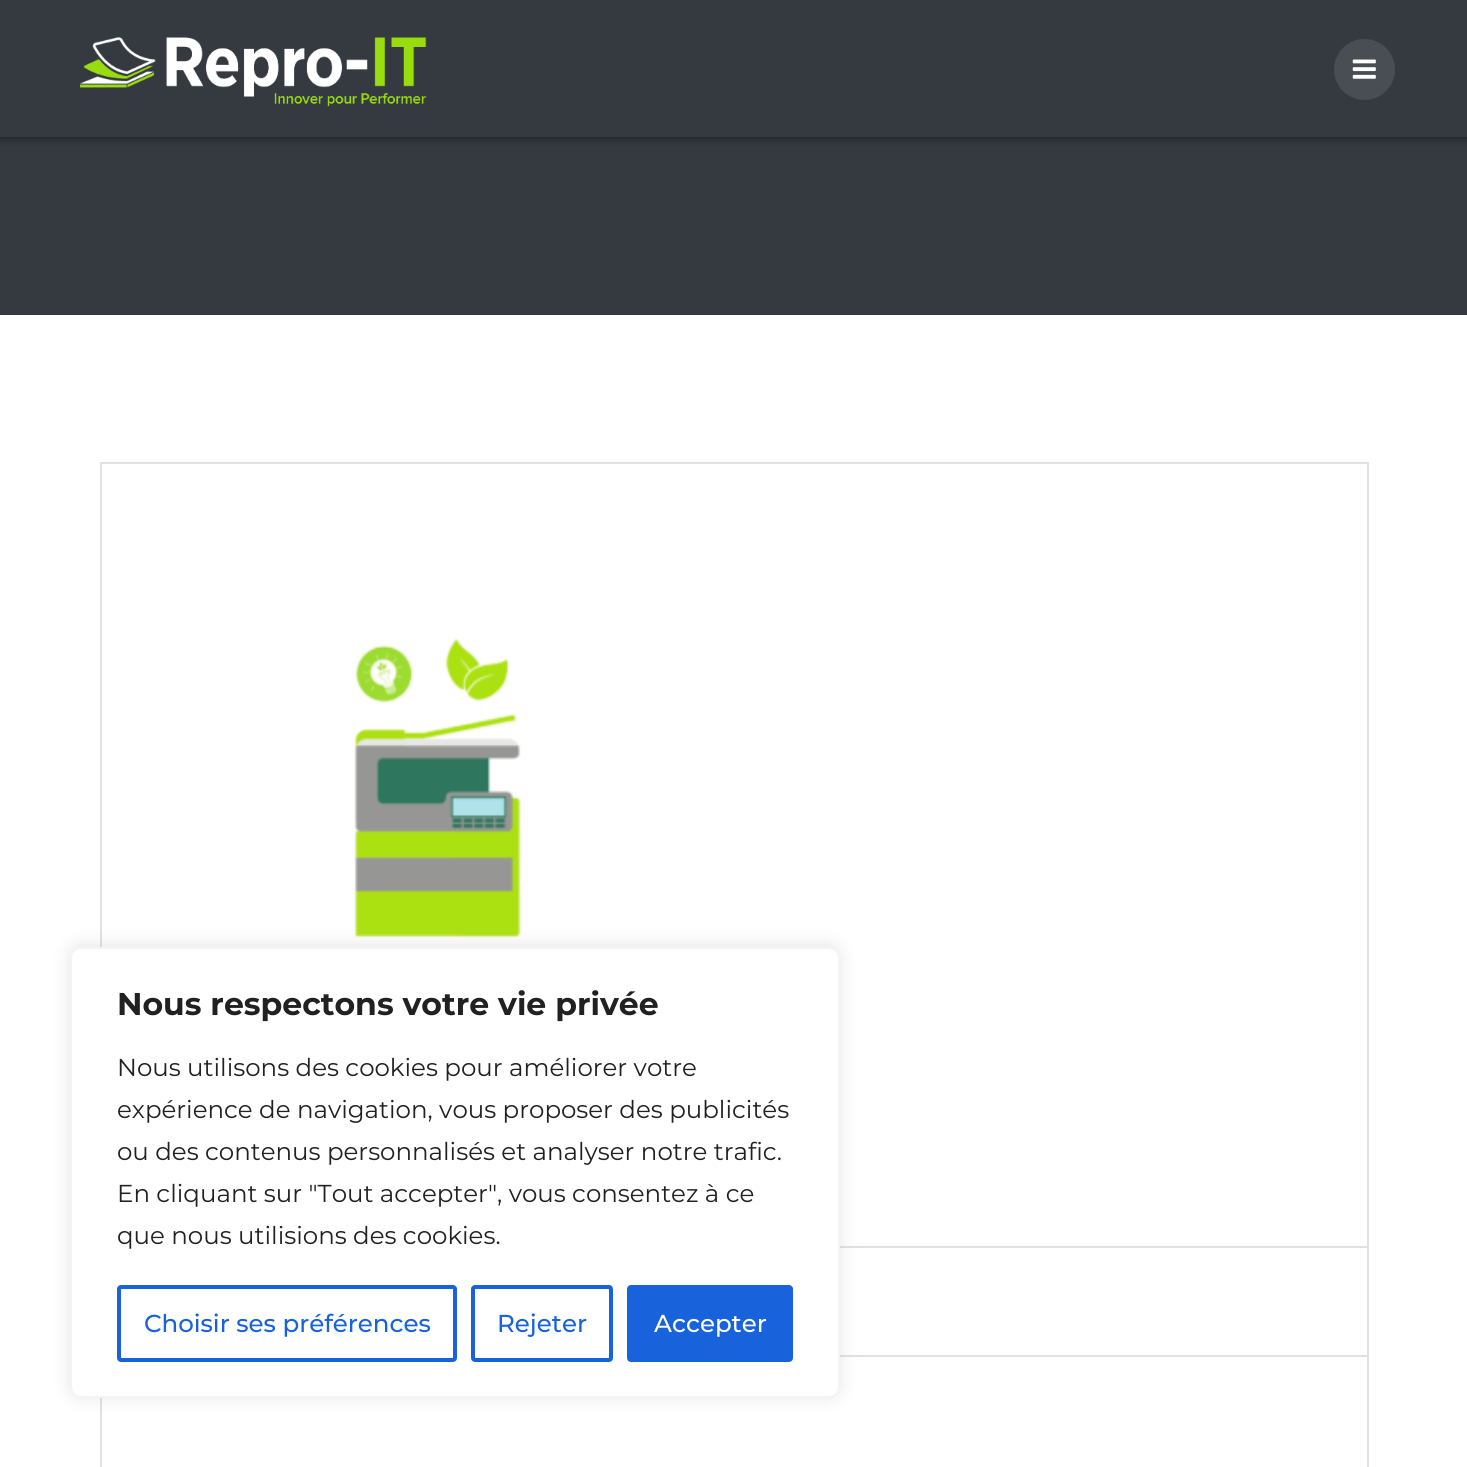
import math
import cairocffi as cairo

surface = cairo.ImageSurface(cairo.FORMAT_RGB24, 1467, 1467)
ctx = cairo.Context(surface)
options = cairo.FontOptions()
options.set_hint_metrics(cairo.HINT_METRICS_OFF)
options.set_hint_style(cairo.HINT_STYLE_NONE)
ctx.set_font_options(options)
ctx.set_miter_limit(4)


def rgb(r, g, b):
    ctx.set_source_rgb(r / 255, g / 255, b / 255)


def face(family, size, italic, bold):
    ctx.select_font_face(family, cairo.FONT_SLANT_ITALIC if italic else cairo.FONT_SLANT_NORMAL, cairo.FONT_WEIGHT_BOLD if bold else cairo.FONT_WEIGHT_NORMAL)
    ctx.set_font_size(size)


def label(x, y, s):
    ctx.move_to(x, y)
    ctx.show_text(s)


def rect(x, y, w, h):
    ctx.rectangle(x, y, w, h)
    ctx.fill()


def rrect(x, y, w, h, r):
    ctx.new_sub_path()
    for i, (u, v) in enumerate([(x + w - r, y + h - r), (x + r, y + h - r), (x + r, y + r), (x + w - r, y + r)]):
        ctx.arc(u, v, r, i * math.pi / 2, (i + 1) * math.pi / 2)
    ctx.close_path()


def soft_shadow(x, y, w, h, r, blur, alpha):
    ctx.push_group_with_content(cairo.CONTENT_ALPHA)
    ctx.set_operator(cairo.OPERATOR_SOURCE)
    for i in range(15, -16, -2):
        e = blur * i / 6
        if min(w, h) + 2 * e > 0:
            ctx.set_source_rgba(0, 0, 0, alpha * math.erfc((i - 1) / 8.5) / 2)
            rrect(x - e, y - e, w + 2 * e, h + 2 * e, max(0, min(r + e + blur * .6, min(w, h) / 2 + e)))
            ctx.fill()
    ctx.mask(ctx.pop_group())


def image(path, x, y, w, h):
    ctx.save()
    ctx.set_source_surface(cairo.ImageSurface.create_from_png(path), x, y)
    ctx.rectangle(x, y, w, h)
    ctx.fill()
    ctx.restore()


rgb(255, 255, 255)
ctx.paint()
rgb(52, 58, 64)
rect(0, 137, 1467, 178)
rgb(0, 0, 0)
soft_shadow(-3, -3, 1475, 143, 0, 4.5, 0.33)
rgb(52, 58, 64)
rect(0, 0, 1467, 137)
image('image0.png', 80, 37, 347, 70)
rgb(72, 78, 83)
ctx.arc(1364.5, 69.5, 30.5, 0, 2 * math.pi)
ctx.fill()
image('image1.png', 1352, 59, 24, 20)
ctx.rectangle(101, 463, 1267, 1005)
rgb(224, 225, 225)
ctx.stroke()
image('image2.png', 354, 638, 168, 309)
rect(840, 1246, 527, 2)
rect(840, 1355, 527, 2)
rgb(172, 171, 171)
soft_shadow(70, 945, 770, 452, 11, 9, 0.3)
rgb(255, 255, 255)
rrect(71, 948, 768, 449, 10)
ctx.fill_preserve()
rgb(244, 244, 244)
ctx.stroke()
face('Montserrat', 31.5, 0, 1)
rgb(33, 33, 33)
label(117, 1015, 'Nous respectons votre vie privée')
face('Montserrat', 24.5, 0, 0)
label(117, 1076, 'Nous utilisons des cookies pour améliorer votre')
label(117, 1118, 'expérience de navigation, vous proposer des publicités')
label(117, 1160, 'ou des contenus personnalisés et analyser notre trafic.')
label(117, 1202, 'En cliquant sur "Tout accepter", vous consentez à ce')
label(117, 1244, 'que nous utilisions des cookies.')
rrect(119, 1287, 336, 73, 2)
rgb(24, 99, 220)
ctx.set_line_width(4)
ctx.stroke()
face('Montserrat Medium', 24.5, 0, 0)
label(144, 1332, 'Choisir ses préférences')
rrect(473, 1287, 138, 73, 2)
ctx.stroke()
label(497, 1332, 'Rejeter')
rrect(629, 1287, 162, 73, 2)
ctx.fill_preserve()
ctx.stroke()
rgb(255, 255, 255)
label(654, 1332, 'Accepter')
surface.write_to_png('render.png')
